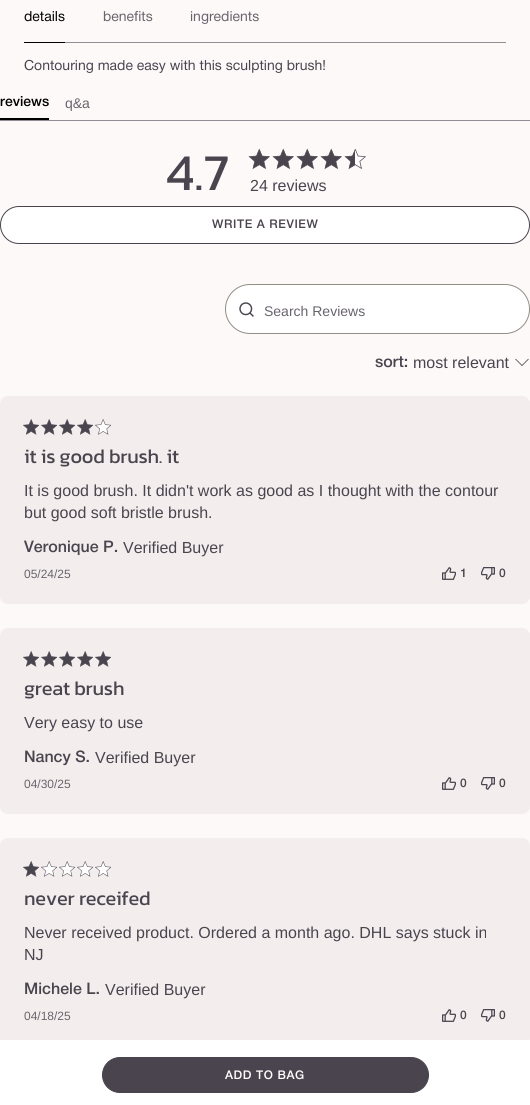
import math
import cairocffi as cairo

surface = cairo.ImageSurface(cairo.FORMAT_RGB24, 530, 1105)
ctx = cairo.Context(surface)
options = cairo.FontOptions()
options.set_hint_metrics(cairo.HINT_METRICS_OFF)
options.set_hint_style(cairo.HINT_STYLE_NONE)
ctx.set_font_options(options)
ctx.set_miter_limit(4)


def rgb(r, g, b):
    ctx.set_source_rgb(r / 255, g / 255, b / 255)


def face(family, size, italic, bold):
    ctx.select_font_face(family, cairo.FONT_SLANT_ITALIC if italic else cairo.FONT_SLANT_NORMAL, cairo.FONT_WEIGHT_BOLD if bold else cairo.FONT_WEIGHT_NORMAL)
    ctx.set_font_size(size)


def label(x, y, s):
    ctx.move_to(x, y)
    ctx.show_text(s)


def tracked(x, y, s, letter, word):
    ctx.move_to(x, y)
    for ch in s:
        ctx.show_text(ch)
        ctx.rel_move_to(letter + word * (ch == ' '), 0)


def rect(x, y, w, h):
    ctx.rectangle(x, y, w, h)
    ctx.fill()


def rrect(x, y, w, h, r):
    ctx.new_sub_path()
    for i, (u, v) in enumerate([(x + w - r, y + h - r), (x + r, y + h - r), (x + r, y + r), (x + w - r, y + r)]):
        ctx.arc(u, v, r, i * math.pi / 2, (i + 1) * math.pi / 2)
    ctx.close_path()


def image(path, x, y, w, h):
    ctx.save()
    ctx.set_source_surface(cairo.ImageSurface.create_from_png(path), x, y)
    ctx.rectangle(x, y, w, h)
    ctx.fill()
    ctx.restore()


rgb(253, 249, 249)
ctx.paint()
rgb(0, 0, 0)
rect(24, 42, 41, 1)
face('Helvetica Neue', 14, 0, 0)
label(24, 21, 'details')
rgb(105, 100, 108)
label(103, 21, 'benefits')
label(190, 21, 'ingredients')
rgb(145, 142, 149)
rect(65, 42, 441, 1)
rgb(74, 68, 78)
label(24, 70, 'Contouring made easy with this sculpting brush!')
rgb(145, 142, 149)
rect(0, 120, 530, 1)
face('Helvetica Neue Medium', 14, 0, 0)
rgb(0, 0, 0)
label(0, 106, 'reviews')
rect(0, 118, 49, 2)
face('Liberation Sans', 14, 0, 0)
rgb(105, 100, 108)
label(65, 108, 'q&a')
face('Kanit', 52, 0, 0)
rgb(74, 68, 78)
label(166, 190, '4.7')
image('image0.png', 248, 149, 22, 20)
image('image0.png', 272, 149, 22, 20)
image('image0.png', 296, 149, 22, 20)
image('image0.png', 320, 149, 22, 20)
image('image1.png', 344, 149, 22, 20)
face('Liberation Sans', 16, 0, 0)
label(250, 191, '24 reviews')
rgb(255, 255, 255)
rrect(0.5, 206.5, 529, 37, 18.5)
ctx.fill_preserve()
rgb(74, 68, 78)
ctx.set_line_width(1)
ctx.stroke()
face('Helvetica Neue Medium', 12, 0, 0)
tracked(212, 228, 'WRITE A REVIEW', 0.6, 0)
rgb(255, 255, 255)
rrect(225.5, 284.5, 304, 49, 24.5)
ctx.fill_preserve()
rgb(145, 142, 133)
ctx.stroke()
image('image2.png', 239, 302, 15, 15)
face('Liberation Sans', 14, 0, 0)
rgb(105, 100, 108)
label(264, 316, 'Search Reviews')
face('Helvetica Neue Medium', 16, 0, 0)
rgb(74, 68, 78)
label(375, 367, 'sort:')
face('Liberation Sans', 16, 0, 0)
label(413, 368, 'most relevant')
ctx.new_path()
ctx.move_to(515.5, 359)
ctx.line_to(522, 365.5)
ctx.line_to(528.5, 359)
ctx.set_line_width(0.8)
ctx.stroke()
rgb(243, 238, 237)
ctx.new_path()
ctx.move_to(0, 568)
ctx.line_to(530, 568)
ctx.line_to(530, 596)
ctx.curve_to(530, 600.5, 526.5, 604, 522, 604)
ctx.line_to(8, 604)
ctx.curve_to(3.5, 604, 0, 600.5, 0, 596)
ctx.close_path()
ctx.fill()
ctx.new_path()
ctx.move_to(8, 396)
ctx.line_to(522, 396)
ctx.curve_to(526.5, 396, 530, 399.5, 530, 404)
ctx.line_to(530, 580)
ctx.line_to(0, 580)
ctx.line_to(0, 404)
ctx.curve_to(0, 399.5, 3.5, 396, 8, 396)
ctx.close_path()
ctx.fill()
image('image3.png', 23, 419, 16, 16)
image('image3.png', 41, 419, 16, 16)
image('image3.png', 59, 419, 16, 16)
image('image3.png', 77, 419, 16, 16)
image('image4.png', 95, 419, 16, 16)
face('Kanit', 20, 0, 0)
rgb(74, 68, 78)
tracked(24, 463, 'it is good brush. it', -0.25, 0)
face('Liberation Sans', 16, 0, 0)
label(24, 496, 'It is good brush. It didn\'t work as good as I thought with the contour')
label(24, 518, 'but good soft bristle brush.')
face('Helvetica Neue Medium', 16, 0, 0)
label(24, 552, 'Veronique P.')
face('Liberation Sans', 16, 0, 0)
label(123, 553, 'Verified Buyer')
face('Liberation Sans', 12, 0, 0)
rgb(105, 100, 108)
label(24, 578, '05/24/25')
image('image5.png', 442, 567, 14, 13)
face('Helvetica Neue Medium', 12, 0, 0)
rgb(74, 68, 78)
label(460, 577, '1')
image('image6.png', 481, 567, 14, 13)
label(499, 577, '0')
rgb(243, 238, 237)
ctx.new_path()
ctx.move_to(0, 778)
ctx.line_to(530, 778)
ctx.line_to(530, 806)
ctx.curve_to(530, 810.5, 526.5, 814, 522, 814)
ctx.line_to(8, 814)
ctx.curve_to(3.5, 814, 0, 810.5, 0, 806)
ctx.close_path()
ctx.fill()
ctx.new_path()
ctx.move_to(8, 628)
ctx.line_to(522, 628)
ctx.curve_to(526.5, 628, 530, 631.5, 530, 636)
ctx.line_to(530, 790)
ctx.line_to(0, 790)
ctx.line_to(0, 636)
ctx.curve_to(0, 631.5, 3.5, 628, 8, 628)
ctx.close_path()
ctx.fill()
image('image3.png', 23, 651, 16, 16)
image('image3.png', 41, 651, 16, 16)
image('image3.png', 59, 651, 16, 16)
image('image3.png', 77, 651, 16, 16)
image('image3.png', 95, 651, 16, 16)
face('Kanit', 20, 0, 0)
rgb(74, 68, 78)
tracked(24, 695, 'great brush', -0.25, 0)
face('Liberation Sans', 16, 0, 0)
label(24, 728, 'Very easy to use')
face('Helvetica Neue Medium', 16, 0, 0)
label(24, 762, 'Nancy S.')
face('Liberation Sans', 16, 0, 0)
label(95, 763, 'Verified Buyer')
face('Liberation Sans', 12, 0, 0)
rgb(105, 100, 108)
label(24, 788, '04/30/25')
image('image5.png', 442, 777, 14, 13)
face('Helvetica Neue Medium', 12, 0, 0)
rgb(74, 68, 78)
label(460, 787, '0')
image('image6.png', 481, 777, 14, 13)
label(499, 787, '0')
rgb(243, 238, 237)
ctx.new_path()
ctx.move_to(0, 1010)
ctx.line_to(530, 1010)
ctx.line_to(530, 1038)
ctx.curve_to(530, 1042.5, 526.5, 1046, 522, 1046)
ctx.line_to(8, 1046)
ctx.curve_to(3.5, 1046, 0, 1042.5, 0, 1038)
ctx.close_path()
ctx.fill()
ctx.new_path()
ctx.move_to(8, 838)
ctx.line_to(522, 838)
ctx.curve_to(526.5, 838, 530, 841.5, 530, 846)
ctx.line_to(530, 1022)
ctx.line_to(0, 1022)
ctx.line_to(0, 846)
ctx.curve_to(0, 841.5, 3.5, 838, 8, 838)
ctx.close_path()
ctx.fill()
image('image3.png', 23, 861, 16, 16)
image('image4.png', 41, 861, 16, 16)
image('image4.png', 59, 861, 16, 16)
image('image4.png', 77, 861, 16, 16)
image('image4.png', 95, 861, 16, 16)
face('Kanit', 20, 0, 0)
rgb(74, 68, 78)
tracked(24, 905, 'never receifed', -0.25, 0)
face('Liberation Sans', 16, 0, 0)
label(24, 938, 'Never received product. Ordered a month ago. DHL says stuck in')
label(24, 960, 'NJ')
face('Helvetica Neue Medium', 16, 0, 0)
label(24, 994, 'Michele L.')
face('Liberation Sans', 16, 0, 0)
label(105, 995, 'Verified Buyer')
face('Liberation Sans', 12, 0, 0)
rgb(105, 100, 108)
label(24, 1020, '04/18/25')
image('image5.png', 442, 1009, 14, 13)
face('Helvetica Neue Medium', 12, 0, 0)
rgb(74, 68, 78)
label(460, 1019, '0')
image('image6.png', 481, 1009, 14, 13)
label(499, 1019, '0')
rgb(255, 255, 255)
rect(0, 1040, 530, 65)
rgb(74, 68, 78)
rrect(102.5, 1057.5, 326, 35, 17.5)
ctx.fill_preserve()
ctx.set_line_width(1)
ctx.stroke()
face('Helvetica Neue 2 Medium', 12, 0, 0)
rgb(255, 255, 255)
tracked(225, 1079, 'ADD TO BAG', 0.6, 0)
surface.write_to_png('render.png')
